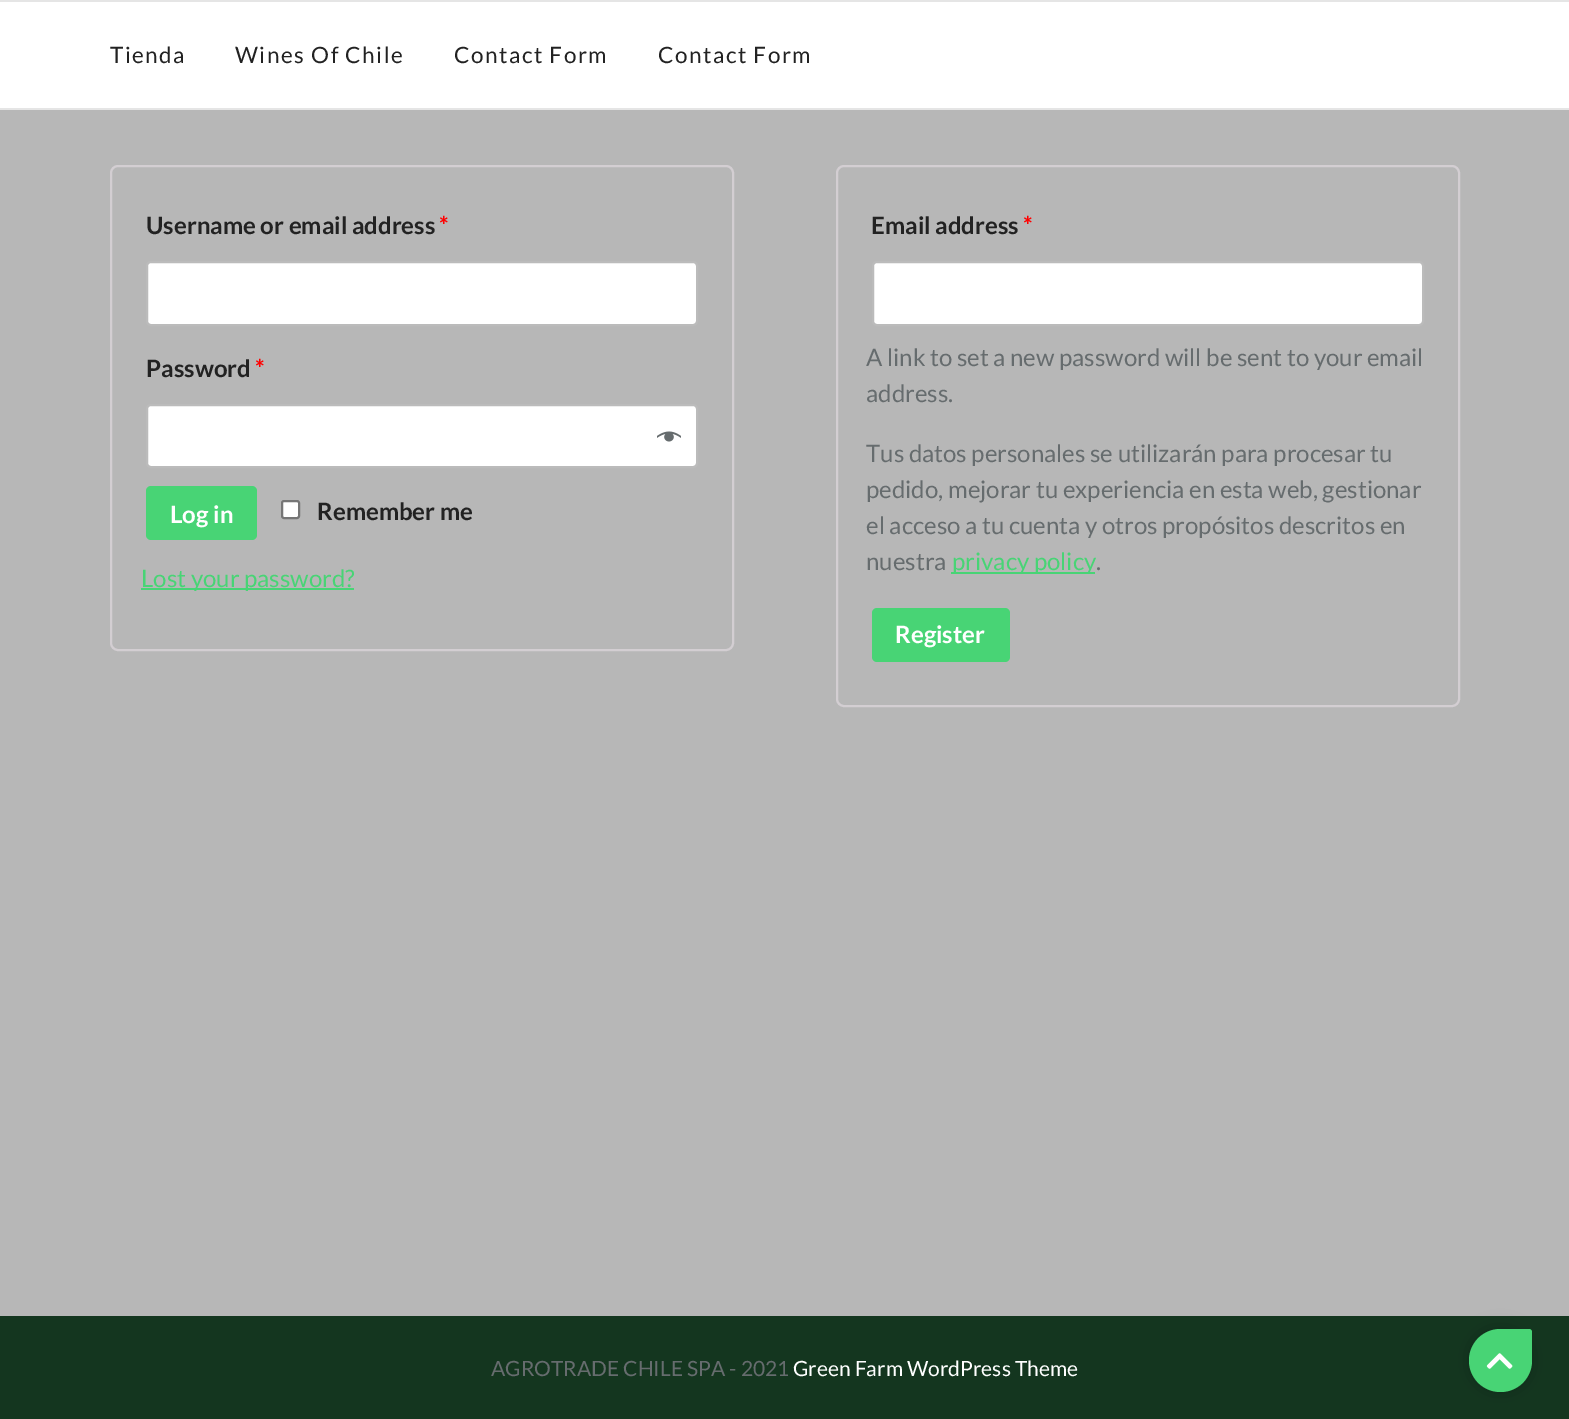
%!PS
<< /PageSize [1569 1419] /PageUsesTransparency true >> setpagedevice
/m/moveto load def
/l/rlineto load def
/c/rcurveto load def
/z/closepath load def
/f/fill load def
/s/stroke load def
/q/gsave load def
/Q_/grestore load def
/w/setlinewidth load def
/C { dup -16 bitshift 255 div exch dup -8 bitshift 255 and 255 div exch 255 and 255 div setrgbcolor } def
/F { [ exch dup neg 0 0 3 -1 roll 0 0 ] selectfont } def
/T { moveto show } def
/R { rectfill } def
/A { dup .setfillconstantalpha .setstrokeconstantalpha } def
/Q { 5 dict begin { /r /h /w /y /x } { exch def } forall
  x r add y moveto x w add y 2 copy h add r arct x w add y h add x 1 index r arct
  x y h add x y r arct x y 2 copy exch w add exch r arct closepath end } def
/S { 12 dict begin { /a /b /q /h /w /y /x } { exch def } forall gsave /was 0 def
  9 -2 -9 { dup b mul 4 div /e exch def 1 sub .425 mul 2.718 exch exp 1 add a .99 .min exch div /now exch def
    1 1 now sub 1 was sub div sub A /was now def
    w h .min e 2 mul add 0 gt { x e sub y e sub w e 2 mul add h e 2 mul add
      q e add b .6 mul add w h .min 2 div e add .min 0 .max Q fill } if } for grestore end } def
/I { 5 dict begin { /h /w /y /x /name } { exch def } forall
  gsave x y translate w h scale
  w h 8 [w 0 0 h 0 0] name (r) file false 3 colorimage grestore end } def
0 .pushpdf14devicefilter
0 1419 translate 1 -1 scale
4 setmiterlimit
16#B7B7B7 C
0 0 1569 1419 R
16#FFFFFF C
0 2 1569 106 R
16#E5E5E5 C
0 0 1569 2 R
0 108 1569 2 R
/Lato-Regular 22.5 F
16#222222 C
110 63 m 1.5 0 (Tienda) ashow
235 63 m 1.5 0 (Wines Of Chile) ashow
454 63 m 1.5 0 (Contact Form) ashow
658 63 m 1.5 0 (Contact Form) ashow
16#D3CED2 C
2 w
111 166 622 484 7 Q s
/Lato-Bold 24 F
16#222222 C
(Username or email address) 146 234 T
16#FF0000 C
(*) 439 234 T
16#FFFFFF C
147 262 550 63 4 Q q f Q_
16#BBBBBB C
s
16#222222 C
(Password) 146 377 T
16#FF0000 C
(*) 255 377 T
16#FFFFFF C
147 405 550 62 4 Q q f Q_
16#BBBBBB C
s
(1.rgb) 657 431 24 11 I
16#48D475 C
146 486 111 54 5 Q f
16#FFFFFF C
(Log in) 170 523 T
282 501 17 17 2 Q q f Q_
16#767676 C
s
16#222222 C
(Remember me) 317 520 T
16#48D475 C
141 588 213 2 R
/Lato-Regular 24 F
(Lost your password?) 141 587 T
16#D3CED2 C
837 166 622 540 7 Q s
/Lato-Bold 24 F
16#222222 C
(Email address) 871 234 T
16#FF0000 C
(*) 1023 234 T
16#FFFFFF C
873 262 550 63 4 Q q f Q_
16#BBBBBB C
s
/Lato-Regular 24 F
16#666C6E C
(A link to set a new password will be sent to your email) 866 366 T
(address.) 866 402 T
(Tus datos personales se utilizarán para procesar tu) 866 462 T
(pedido, mejorar tu experiencia en esta web, gestionar) 866 498 T
(el acceso a tu cuenta y otros propósitos descritos en) 866 534 T
(nuestra) 866 570 T
16#48D475 C
951 572 144 2 R
(privacy policy) 952 570 T
16#666C6E C
(.) 1096 570 T
16#48D475 C
872 608 138 54 5 Q f
/Lato-Bold 24 F
16#FFFFFF C
(Register) 895 643 T
16#14361F C
0 1316 1569 103 R
/Lato-Regular 21 F
16#666C6E C
(AGROTRADE CHILE SPA - 2021) 491 1376 T
16#FFFFFF C
(Green Farm WordPress Theme) 793 1376 T
16#000000 C
1469 1329 63 63 31.5 9 .2 S
16#48D475 C
1500.5 1329 m 28.5 0 l 1.5 0 3 1.5 3 3 c 0 28.5 l 0 17.5 -14 31.5 -31.5 31.5 c -17.5 0 -31.5 -14 -31.5 -31.5 c 0 -17.5 14 -31.5 31.5 -31.5 c z f
(2.rgb) 1486 1353 27 16 I
.poppdf14devicefilter showpage
